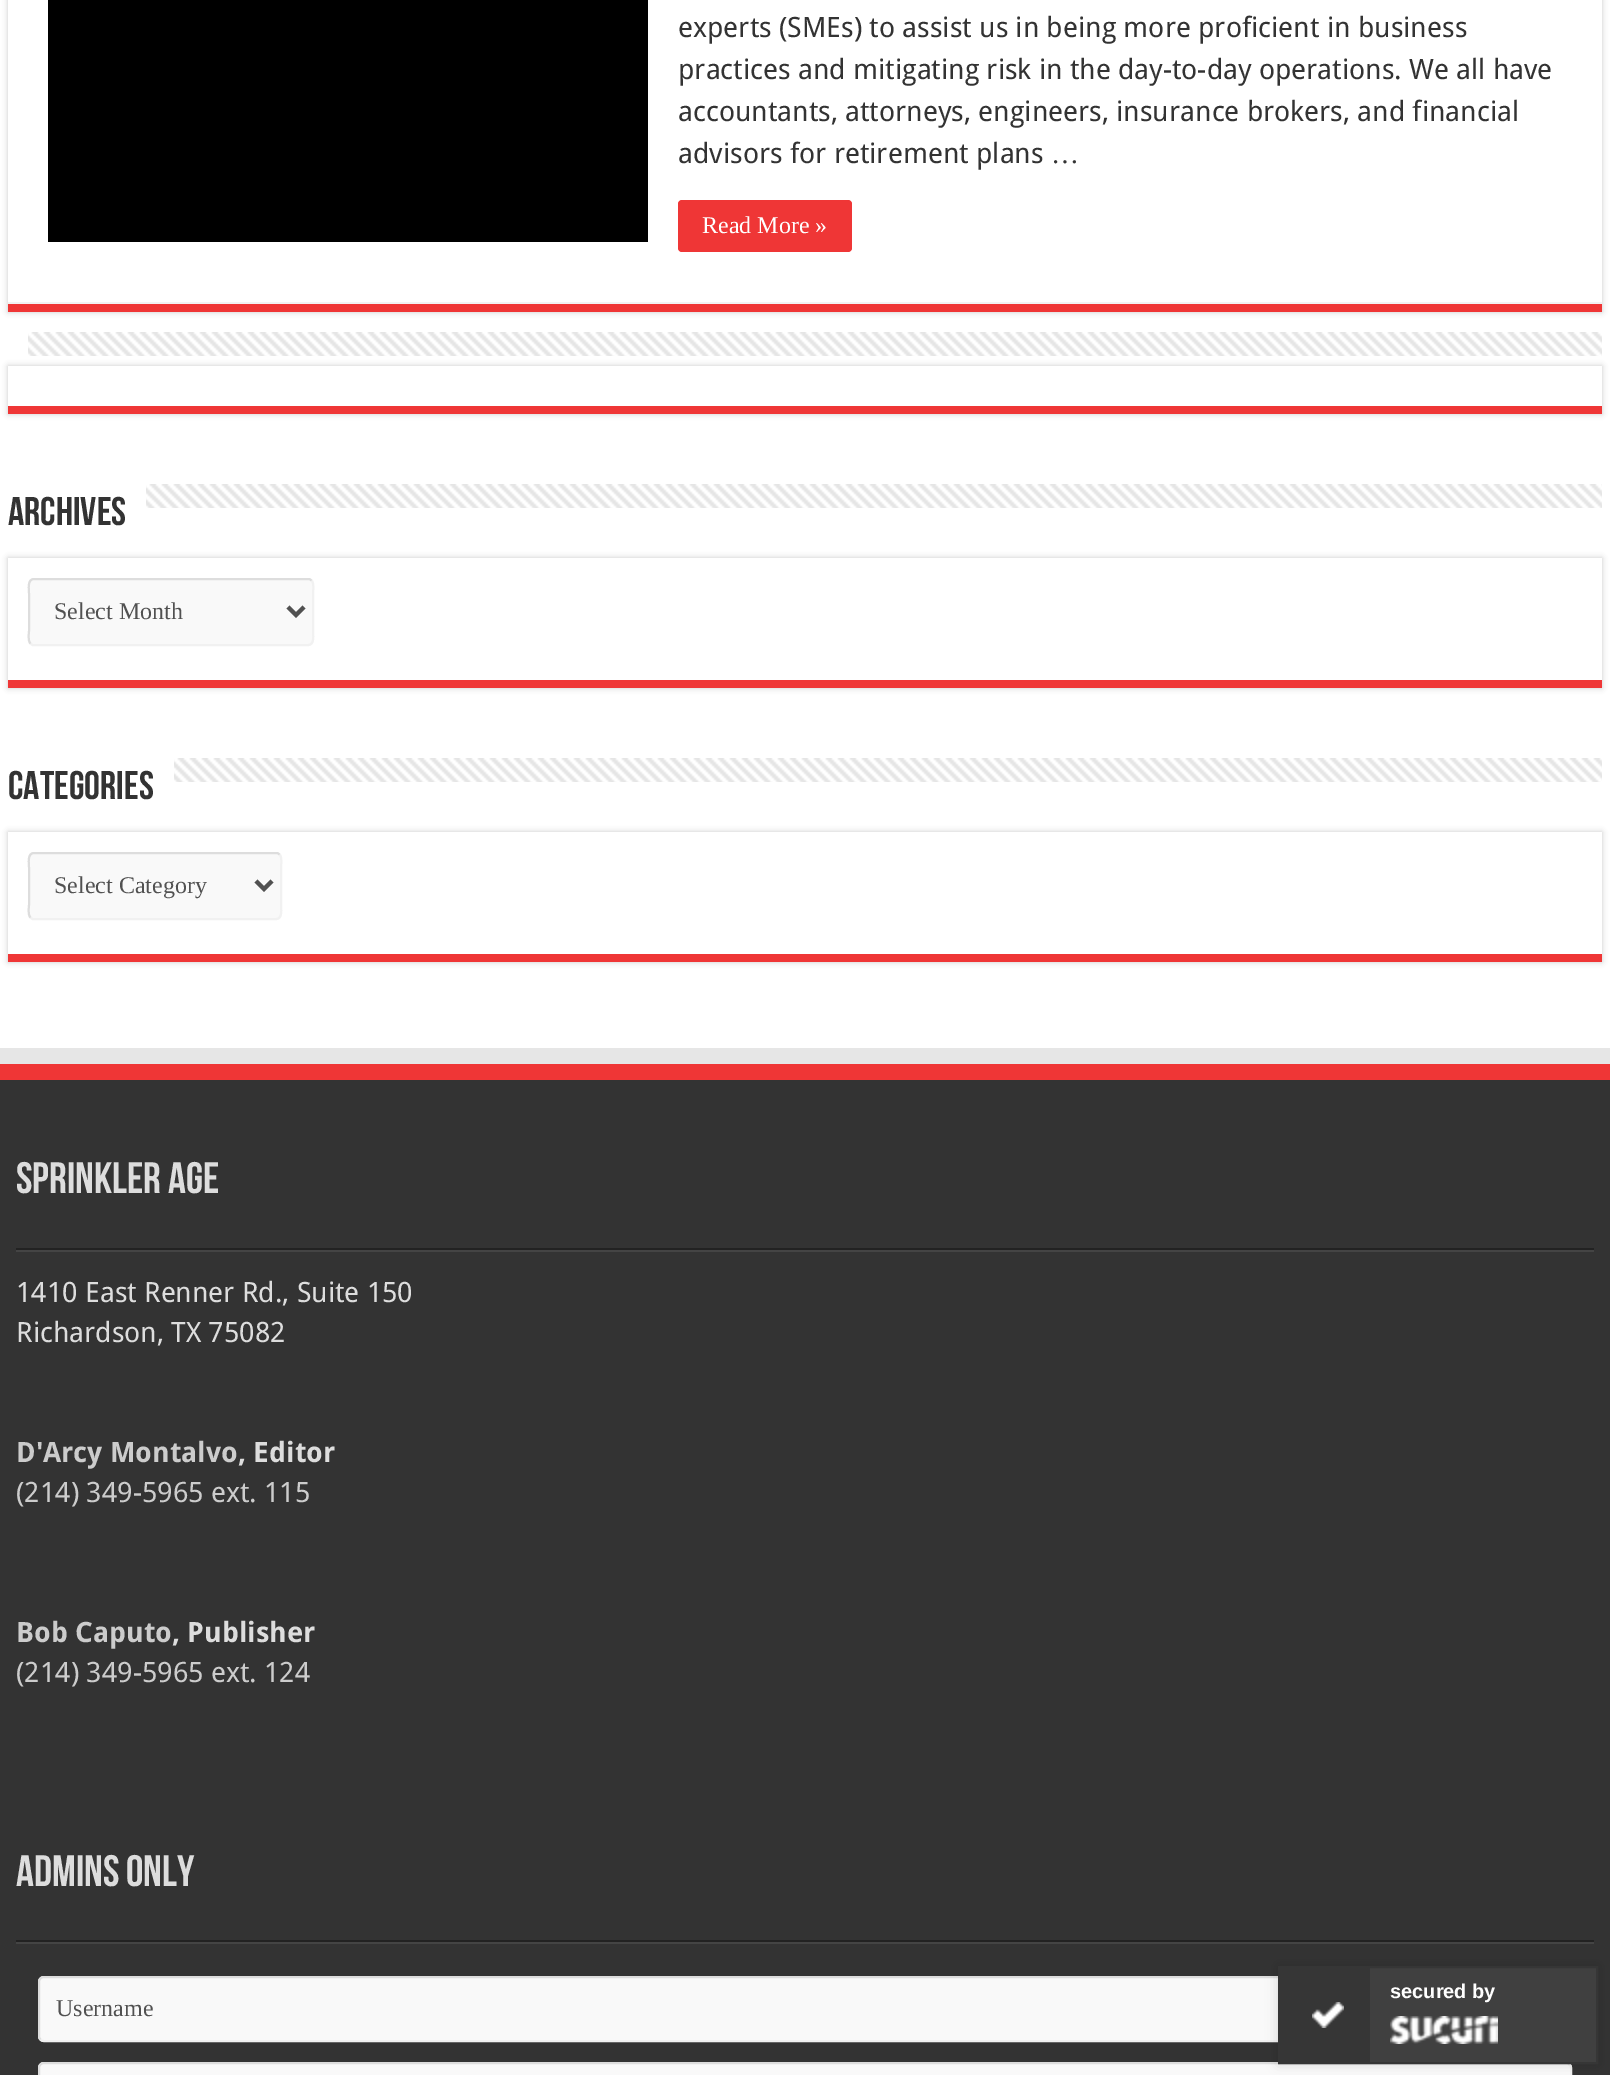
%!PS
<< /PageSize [1610 2075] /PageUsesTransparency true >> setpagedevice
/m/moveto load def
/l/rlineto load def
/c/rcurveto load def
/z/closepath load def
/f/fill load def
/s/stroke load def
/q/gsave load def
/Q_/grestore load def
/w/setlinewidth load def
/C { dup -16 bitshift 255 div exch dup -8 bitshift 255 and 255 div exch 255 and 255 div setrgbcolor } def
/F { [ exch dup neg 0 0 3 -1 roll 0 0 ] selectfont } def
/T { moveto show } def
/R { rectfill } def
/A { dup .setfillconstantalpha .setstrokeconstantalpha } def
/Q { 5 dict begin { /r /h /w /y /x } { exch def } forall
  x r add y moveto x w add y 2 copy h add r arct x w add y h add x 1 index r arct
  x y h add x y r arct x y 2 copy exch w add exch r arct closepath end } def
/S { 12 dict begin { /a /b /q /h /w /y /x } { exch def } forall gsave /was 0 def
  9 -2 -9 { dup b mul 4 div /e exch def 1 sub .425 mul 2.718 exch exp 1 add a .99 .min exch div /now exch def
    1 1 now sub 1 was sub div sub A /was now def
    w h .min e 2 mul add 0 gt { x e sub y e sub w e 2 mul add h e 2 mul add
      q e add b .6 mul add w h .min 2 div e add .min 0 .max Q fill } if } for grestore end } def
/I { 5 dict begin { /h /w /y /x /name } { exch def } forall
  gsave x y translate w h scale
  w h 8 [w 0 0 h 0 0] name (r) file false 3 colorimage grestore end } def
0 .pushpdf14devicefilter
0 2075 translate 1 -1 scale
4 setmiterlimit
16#FFFFFF C
0 0 1610 2075 R
q
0 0 m 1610 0 l 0 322 l -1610 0 l z 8 -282 m 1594 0 l 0 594 l -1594 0 l z eoclip newpath
16#CACACA C
8 -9 1594 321 0 3 1 S
Q_
16#EF3636 C
8 304 1594 8 R
16#F2F2F2 C
8 302 1594 2 R
16#000000 C
48 0 600 242 R
/DroidSans-Regular 28 F
16#333333 C
(experts \(SMEs\) to assist us in being more proficient in business) 678 37 T
(practices and mitigating risk in the day-to-day operations. We all have) 678 79 T
(accountants, attorneys, engineers, insurance brokers, and financial) 678 121 T
(advisors for retirement plans) 678 163 T
/LiberationSerif-Regular 28 F
(…) 1051 163 T
16#EF3636 C
678 200 174 52 4 Q f
/LiberationSerif-Regular 24 F
16#FFFFFF C
(Read More ») 702 233 T
(1.rgb) 28 332 1574 24 I
q
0 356 m 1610 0 l 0 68 l -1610 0 l z 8 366 m 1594 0 l 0 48 l -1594 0 l z eoclip newpath
16#CACACA C
8 366 1594 48 0 3 1 S
Q_
16#EF3636 C
8 406 1594 8 R
/BebasNeue-Bold 40 F
16#333333 C
(Archives) 8 525 T
(2.rgb) 146 484 1456 24 I
q
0 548 m 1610 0 l 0 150 l -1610 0 l z 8 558 m 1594 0 l 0 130 l -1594 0 l z eoclip newpath
16#CACACA C
8 558 1594 130 0 3 1 S
Q_
16#EF3636 C
8 680 1594 8 R
16#F9F9F9 C
28 578 286 68 6 Q f
16#F1F1F1 C
2 w
311.5 580.5 m 3 3 1.5 10.5 1.5 13 c 0 37 l 0 3.5 2 14.5 -5 14.5 c -275.5 0 l -2 -1.5 l s
16#DDDDDD C
30.5 643.5 m -3 -3 -1.5 -10.5 -1.5 -13 c 0 -37 l 0 -3.5 -2 -14.5 5 -14.5 c 275.5 0 l 2 1.5 l s
16#515151 C
4 w
288 607 m 8 8 l 8 -8 l s
/LiberationSerif-Regular 24 F
(Select Month) 54 619 T
/BebasNeue-Bold 40 F
16#333333 C
(Categories) 8 799 T
(3.rgb) 174 758 1428 24 I
q
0 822 m 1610 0 l 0 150 l -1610 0 l z 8 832 m 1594 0 l 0 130 l -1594 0 l z eoclip newpath
16#CACACA C
8 832 1594 130 0 3 1 S
Q_
16#EF3636 C
8 954 1594 8 R
16#F9F9F9 C
28 852 254 68 6 Q f
16#F1F1F1 C
2 w
279.5 854.5 m 3 3 1.5 10.5 1.5 13 c 0 37 l 0 3.5 2 14.5 -5 14.5 c -243.5 0 l -2 -1.5 l s
16#DDDDDD C
30.5 917.5 m -3 -3 -1.5 -10.5 -1.5 -13 c 0 -37 l 0 -3.5 -2 -14.5 5 -14.5 c 243.5 0 l 2 1.5 l s
16#515151 C
4 w
256 881 m 8 8 l 8 -8 l s
/LiberationSerif-Regular 24 F
(Select Category) 54 893 T
16#E6E6E6 C
0 1048 1610 16 R
16#333333 C
0 1080 1610 995 R
16#EF3636 C
0 1064 1610 16 R
16#222222 C
16 1248 1578 2 R
/BebasNeue-Bold 44 F
16#DDDDDD C
(Sprinkler Age) 16 1193 T
16#444444 C
16 1250 1578 2 R
/DroidSans-Regular 28 F
16#DDDDDD C
(1410 East Renner Rd., Suite 150) 16 1302 T
(Richardson, TX 75082) 16 1342 T
/DroidSans-Bold 28 F
16#CCCCCC C
(D'Arcy Montalvo) 16 1462 T
16#DDDDDD C
(, Editor) 238 1462 T
/DroidSans-Regular 28 F
16#CCCCCC C
(\(214\) 349-5965 ext. 115) 16 1502 T
/DroidSans-Bold 28 F
(Bob Caputo) 16 1642 T
16#DDDDDD C
(, Publisher) 172 1642 T
/DroidSans-Regular 28 F
16#CCCCCC C
(\(214\) 349-5965 ext. 124) 16 1682 T
16#222222 C
16 1940 1578 2 R
/BebasNeue-Bold 44 F
16#DDDDDD C
(Admins Only) 16 1886 T
16#444444 C
16 1942 1578 2 R
16#F9F9F9 C
38 1976 1534 66 6 Q f
16#F1F1F1 C
2 w
1569.5 1978.5 m 1 1 1.5 2 1.5 3.5 c 0 54 l 0 1.5 -.5 2.5 -1.5 3.5 c -1 1 -2 1.5 -3.5 1.5 c -1522 0 l -1.5 0 -2.5 -.5 -3.5 -1.5 c s
16#DDDDDD C
40.5 2039.5 m -1 -1 -1.5 -2 -1.5 -3.5 c 0 -54 l 0 -1.5 .5 -2.5 1.5 -3.5 c 1 -1 2 -1.5 3.5 -1.5 c 1522 0 l 1.5 0 2.5 .5 3.5 1.5 c s
/LiberationSerif-Regular 24 F
16#515151 C
(Username) 56 2016 T
16#F9F9F9 C
38 2062 1534 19 6 Q f
16#F1F1F1 C
1569.5 2064.5 m 1 1 1.5 2 1.5 3.5 c 0 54 l 0 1.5 -.5 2.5 -1.5 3.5 c -1 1 -2 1.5 -3.5 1.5 c -1522 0 l -1.5 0 -2.5 -.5 -3.5 -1.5 c s
16#DDDDDD C
40.5 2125.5 m -1 -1 -1.5 -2 -1.5 -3.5 c 0 -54 l 0 -1.5 .5 -2.5 1.5 -3.5 c 1 -1 2 -1.5 3.5 -1.5 c 1522 0 l 1.5 0 2.5 .5 3.5 1.5 c s
16#000000 C
1278 1966 320 98 0 6 .14 S
16#404040 C
1370 1968 226 94 R
16#363636 C
1279 1967 318 96 rectstroke
1280 1968 90 94 R
(4.rgb) 1312 2002 32 26 I
/LiberationSans-Bold 20 F
16#FFFFFF C
(secured by) 1390 1998 T
(5.rgb) 1390 2016 108 28 I
.poppdf14devicefilter showpage
